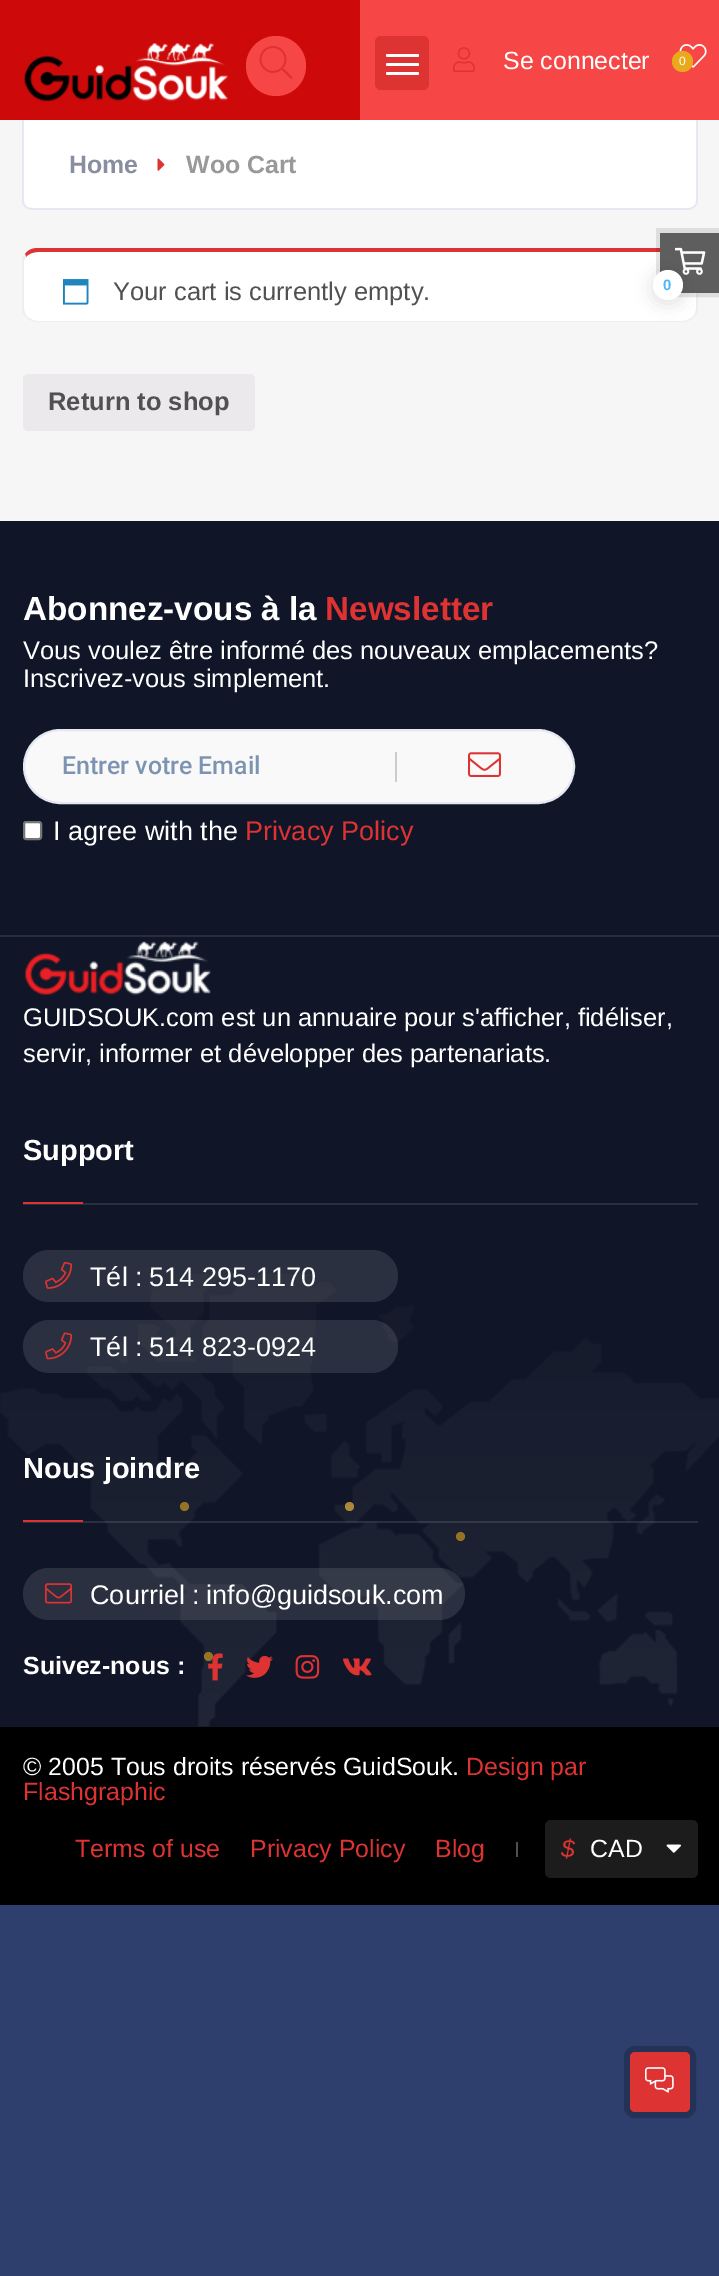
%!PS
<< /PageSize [719 2276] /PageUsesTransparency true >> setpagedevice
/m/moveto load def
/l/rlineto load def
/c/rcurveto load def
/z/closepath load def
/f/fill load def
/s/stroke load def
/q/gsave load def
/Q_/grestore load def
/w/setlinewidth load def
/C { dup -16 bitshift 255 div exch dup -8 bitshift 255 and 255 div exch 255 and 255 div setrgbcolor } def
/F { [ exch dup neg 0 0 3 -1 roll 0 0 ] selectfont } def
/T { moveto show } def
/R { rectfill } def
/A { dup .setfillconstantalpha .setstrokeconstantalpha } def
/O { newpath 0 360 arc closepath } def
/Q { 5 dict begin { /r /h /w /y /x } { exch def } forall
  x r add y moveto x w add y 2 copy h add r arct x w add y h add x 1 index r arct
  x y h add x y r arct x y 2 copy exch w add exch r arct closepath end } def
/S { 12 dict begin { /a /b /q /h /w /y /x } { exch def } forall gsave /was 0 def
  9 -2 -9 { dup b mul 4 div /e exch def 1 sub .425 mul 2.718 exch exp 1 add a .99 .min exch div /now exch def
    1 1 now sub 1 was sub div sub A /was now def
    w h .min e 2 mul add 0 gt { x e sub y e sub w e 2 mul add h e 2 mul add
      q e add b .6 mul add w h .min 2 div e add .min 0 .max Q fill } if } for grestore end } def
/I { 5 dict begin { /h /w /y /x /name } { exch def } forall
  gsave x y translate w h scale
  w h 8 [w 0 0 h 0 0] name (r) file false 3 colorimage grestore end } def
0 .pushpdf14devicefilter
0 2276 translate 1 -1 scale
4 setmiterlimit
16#2E3F6E C
0 0 719 2276 R
16#CE0909 C
0 0 360 120 R
16#F74646 C
276 66 30 O f
(1.rgb) 259 46 34 33 I
360 0 359 120 R
(2.rgb) 24 43 204 59 I
16#DD3333 C
375 36 54 54 6 Q f
16#FFFFFF C
386 54 33 3 1.5 Q f
386 63 33 3 1.5 Q f
386 72 33 3 1.5 Q f
(3.rgb) 453 47 22 25 I
/LiberationSans-Regular 24.9 F
(Se connecter) 503 69 T
(4.rgb) 679 44 28 24 I
16#E8AA1B C
682.5 61.5 10.5 O f
/LiberationSans-Regular 12 F
16#FFFFFF C
(0) 679 65 T
16#F6F6F6 C
0 120 719 401 R
16#FFFFFF C
23 120 m 675 0 l 0 81 l 0 5 -4 9 -9 9 c -657 0 l -5 0 -9 -4 -9 -9 c z f
16#E5E7F2 C
22 120 m 676 0 l 0 81 l 0 5 -5 9 -10 9 c -656 0 l -5 0 -10 -4 -10 -9 c z 24 120 m 672 0 l 0 81 l 0 4 -3 7 -8 7 c -656 0 l -5 0 -8 -3 -8 -7 c z eofill
/LiberationSans-Bold 24.9 F
16#888DA0 C
(Home) 69 173 T
(5.rgb) 157 158 8 13 I
16#999999 C
(Woo Cart) 186 173 T
16#FFFFFF C
38 252 m 644 0 l 8 0 14 5 14 10 c 0 46 l 0 7 -6 13 -14 13 c -644 0 l -8 0 -14 -6 -14 -13 c 0 -46 l 0 -5 6 -10 14 -10 c z f
16#DD3333 C
38 248 m -6 0 -10 2 -13 6 c 1 3 l 2 -3 7 -5 12 -5 c 644 0 l 5 0 10 2 12 5 c 1 -3 l -3 -4 -7 -6 -13 -6 c z f
16#EEEEEE C
698 312 m -1 2 -3 4 -5 6 c -1 -1 l 3 -2 4 -6 4 -9 c 0 -46 l 0 -2 -1 -3 -2 -5 c 1 -3 l 3 4 l z f
693 318 m -3 3 -7 4 -11 4 c -644 0 l -4 0 -8 -1 -11 -4 c 1 -1 l 2 2 6 4 10 4 c 644 0 l 4 0 8 -2 10 -4 c z f
22 258 m 3 -4 l 1 3 l -1 2 -2 3 -2 5 c 0 46 l 0 3 1 7 4 9 c -1 1 l -2 -2 -4 -4 -5 -6 c z f
(6.rgb) 63 279 26 26 I
/LiberationSans-Regular 25.5 F
16#515151 C
(Your cart is currently empty.) 113 300 T
16#EBE9EB C
23 374 232 57 5 Q f
/LiberationSans-Bold 25.5 F
16#515151 C
(Return to shop) 48 410 T
0.1 A
16#000000 C
5 w
658.5 230.5 m 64 0 l 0 64 l -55.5 0 l -4.5 0 -8.5 -4 -8.5 -8.5 c z s
1 A
16#5E5E5E C
660 233 59 60 R
(7.rgb) 675 247 31 28 I
16#000000 C
653 273 30 30 15 9 .12 S
16#FFFFFF C
668 285 15 O f
/LiberationSans-Bold 15 F
16#4DB7FE C
(0) 663 290 T
16#101627 C
0 521 719 1206 R
16#282D3D C
0 935 719 2 R
/LiberationSans-Bold 33.25 F
16#FFFFFF C
(Abonnez-vous à la) 23 620 T
16#DD3333 C
(Newsletter) 325 620 T
/LiberationSans-Regular 25.5 F
16#FFFFFF C
(Vous voulez être informé des nouveaux emplacements?) 23 659 T
(Inscrivez-vous simplement.) 23 687 T
16#F9F9F9 C
24 730 550 73 36.5 Q q f Q_
16#E5E7F2 C
2 w
s
/Roboto-Medium 24.9 F
16#7D93B2 C
(Entrer votre Email) 62 774 T
16#CCCCCC C
395 752 2 30 R
(8.rgb) 468 752 33 25 I
16#FFFFFF C
24 822 17 17 2 Q q f Q_
16#767676 C
s
/LiberationSans-Regular 27 F
16#FFFFFF C
(I agree with the) 53 840 T
16#DD3333 C
(Privacy Policy) 245 840 T
(9.rgb) 25 941 186 54 I
/LiberationSans-Regular 25.5 F
16#FFFFFF C
(GUIDSOUK.com est un annuaire pour s'afficher, fidéliser,) 23 1026 T
(servir, informer et développer des partenariats.) 23 1062 T
16#2A303F C
23 1203 675 2 R
/LiberationSans-Bold 29 F
16#FFFFFF C
(Support) 23 1160 T
16#DD3333 C
23 1202 60 2 R
(17.rgb) 0 1274 719 453 I
0.11 A
16#FFFFFF C
23 1250 375 52 26 Q f
1 A
(10.rgb) 45 1261 27 28 I
/LiberationSans-Regular 27 F
(Tél :) 90 1286 T
(514 295-1170) 149 1286 T
0.11 A
23 1320 375 53 26.5 Q f
1 A
(11.rgb) 45 1332 28 28 I
(Tél :) 90 1356 T
(514 823-0924) 149 1356 T
0.11 A
23 1521 675 2 R
/LiberationSans-Bold 29 F
1 A
(Nous joindre) 23 1478 T
16#DD3333 C
23 1520 60 2 R
0.11 A
16#FFFFFF C
23 1568 442 52 26 Q f
1 A
(12.rgb) 45 1583 27 21 I
/LiberationSans-Regular 27 F
(Courriel :) 90 1604 T
(info@guidsouk.com) 206 1604 T
/LiberationSans-Bold 24.9 F
(Suivez-nous :) 23 1674 T
16#977425 C
208.5 1656.5 4.5 O f
(13.rgb) 208 1653 15 28 I
(14.rgb) 246 1655 27 23 I
(15.rgb) 295 1655 25 24 I
(16.rgb) 343 1658 29 18 I
16#967324 C
184.5 1506.5 4.5 O f
0.24 A
16#FFFFFF C
349.5 1506.5 4.5 O f
0.6 A
16#E8AA1B C
349.5 1506.5 4.5 O f
1 A
16#967324 C
460.5 1536.5 4.5 O f
16#000000 C
0 1727 719 178 R
/LiberationSans-Regular 24.9 F
16#FFFFFF C
(© 2005 Tous droits réservés GuidSouk.) 23 1775 T
16#DD3333 C
(Design par) 466 1775 T
(Flashgraphic) 23 1800 T
(Terms of use) 75 1857 T
(Privacy Policy) 250 1857 T
(Blog) 435 1857 T
16#4F4F4F C
516 1842 2 15 R
16#1C1C1C C
545 1820 153 58 6 Q f
/LiberationSans-Italic 24.9 F
16#DD3333 C
($) 561 1857 T
/LiberationSans-Regular 24.9 F
16#FFFFFF C
(CAD) 590 1857 T
(18.rgb) 666 1844 15 9 I
16#253258 C
6 w
627 2049 66 66 8 Q s
16#DD3333 C
630 2052 60 60 5 Q f
(19.rgb) 645 2067 29 26 I
.poppdf14devicefilter showpage
